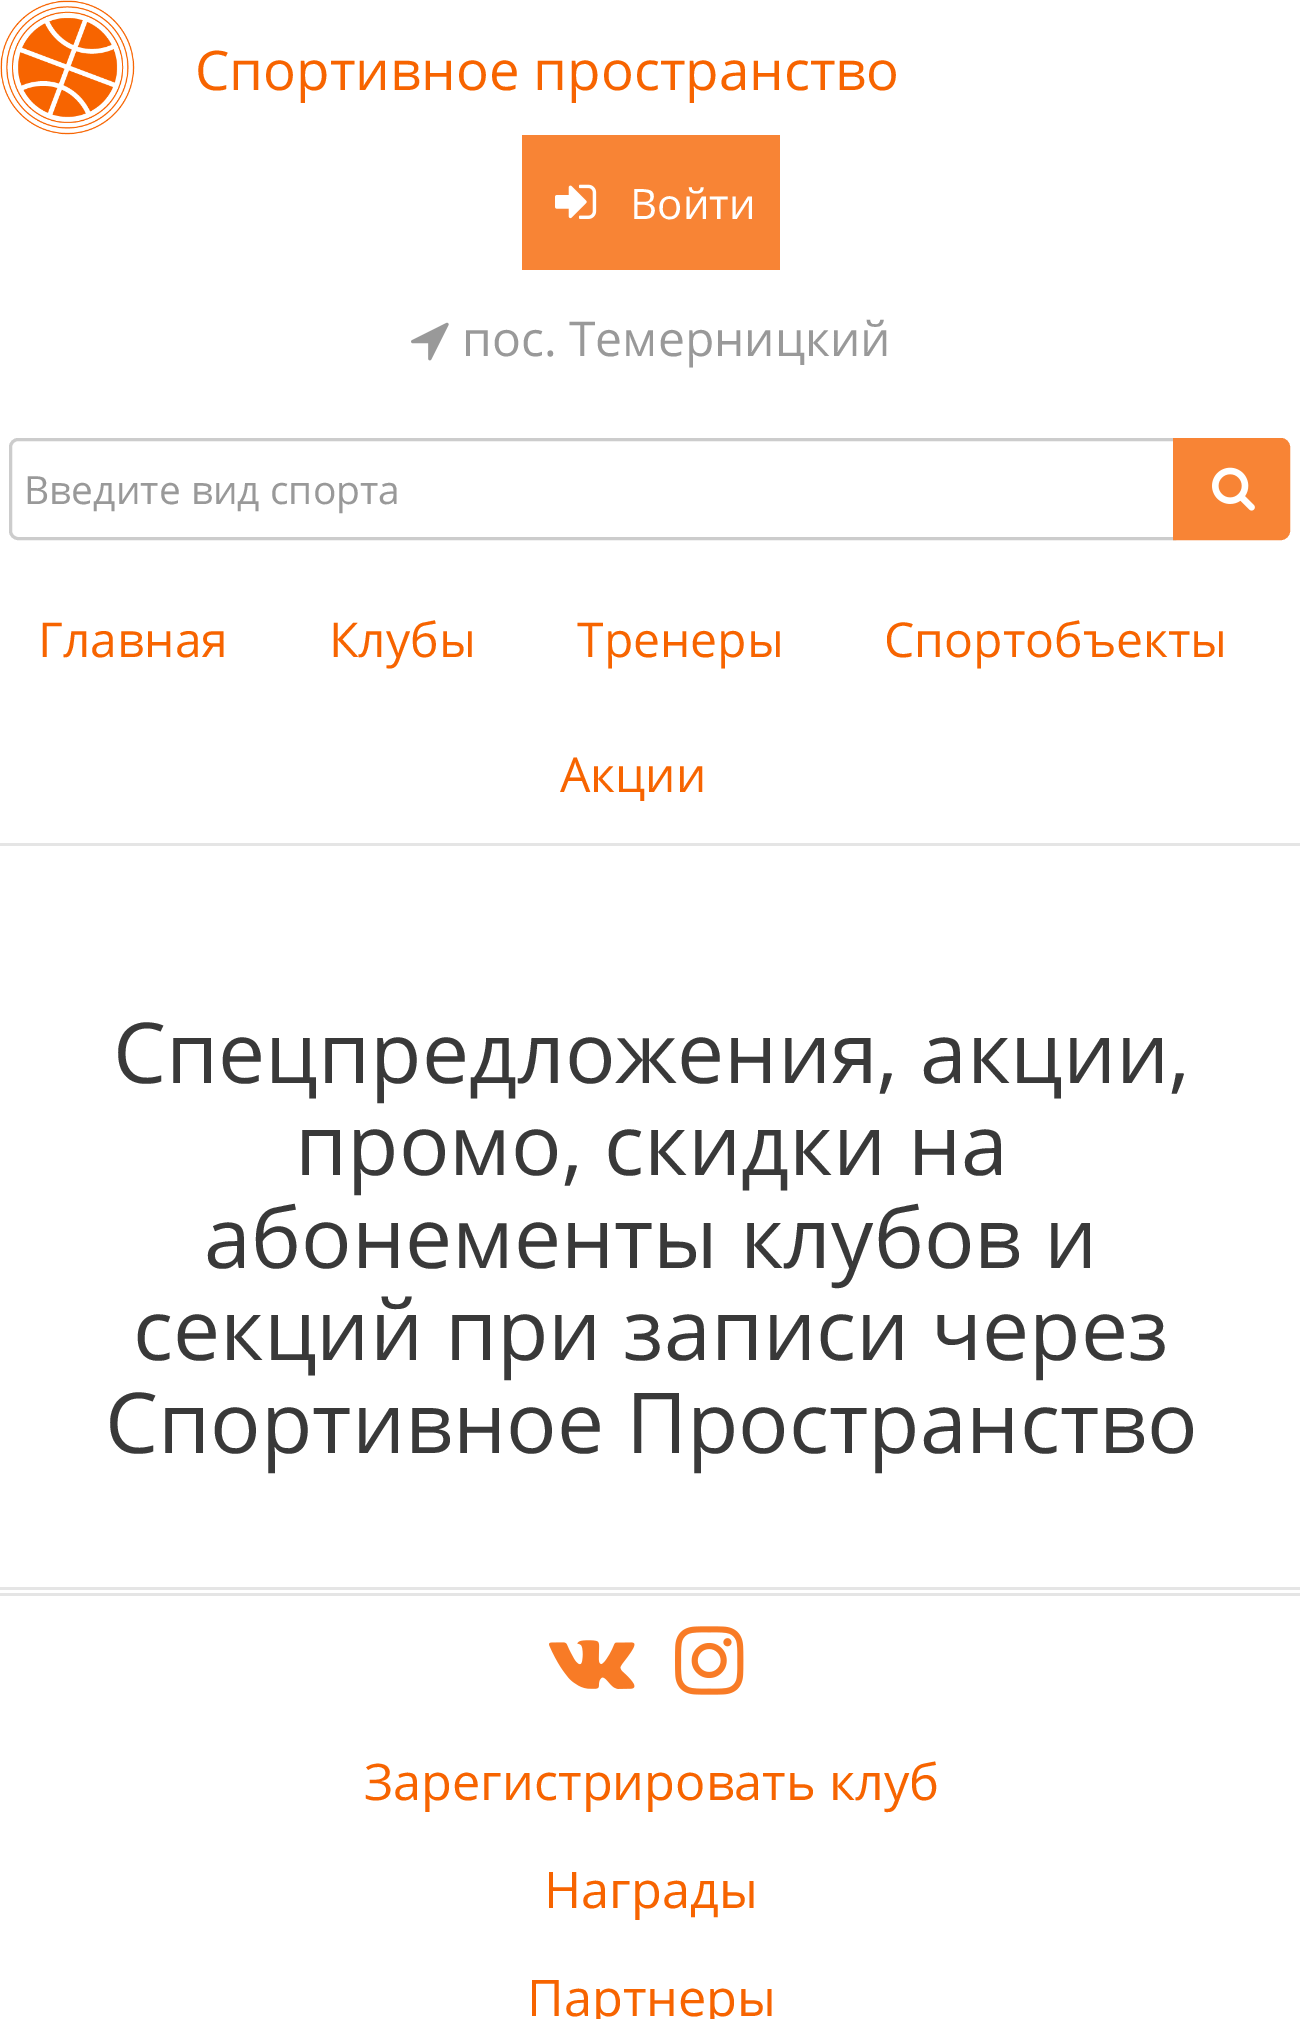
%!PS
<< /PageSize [1300 2019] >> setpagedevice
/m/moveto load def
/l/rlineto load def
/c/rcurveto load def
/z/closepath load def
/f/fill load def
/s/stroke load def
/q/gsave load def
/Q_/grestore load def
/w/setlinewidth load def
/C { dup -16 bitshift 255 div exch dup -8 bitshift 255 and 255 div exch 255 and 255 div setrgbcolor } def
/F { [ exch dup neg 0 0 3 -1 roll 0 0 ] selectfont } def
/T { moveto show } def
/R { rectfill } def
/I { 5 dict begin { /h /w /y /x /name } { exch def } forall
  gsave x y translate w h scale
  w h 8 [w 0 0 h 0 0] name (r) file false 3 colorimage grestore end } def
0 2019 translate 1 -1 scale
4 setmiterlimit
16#FFFFFF C
0 0 1300 2019 R
16#E5E5E5 C
0 843 1300 3 R
(1.rgb) 0 0 135 135 I
/OpenSans-Regular 54.6 F
16#F76400 C
(Спортивное пространство) 195 90 T
16#F88435 C
522 135 258 135 R
(2.rgb) 555 184 42 35 I
/OpenSans-Regular 42 F
16#FFFFFF C
(Войти) 630 219 T
(3.rgb) 411 322 38 39 I
/OpenSans-Regular 48 F
16#999999 C
(пос. Темерницкий) 462 356 T
16#CCCCCC C
3 w
18 439.5 m 1156.5 0 l 0 99 l -1156.5 0 l -4 0 -7.5 -3.5 -7.5 -7.5 c 0 -84 l 0 -4 3.5 -7.5 7.5 -7.5 c z s
/OpenSans-Regular 39 F
16#999999 C
(Введите вид спорта) 24 504 T
16#F88435 C
1174.5 439.5 m 106.5 0 l 4 0 7.5 3.5 7.5 7.5 c 0 84 l 0 4 -3.5 7.5 -7.5 7.5 c -106.5 0 l z q f Q_
s
(4.rgb) 1212 467 43 44 I
/OpenSans-Regular 48 F
16#F76400 C
(Главная) 38 657 T
(Клубы) 329 657 T
(Тренеры) 577 657 T
(Спортобъекты) 884 657 T
(Акции) 560 792 T
/OpenSans-Regular 84 F
16#393939 C
(Спецпредложения, акции,) 113 1083 T
(промо, скидки на) 295 1175 T
(абонементы клубов и) 204 1268 T
(секций при записи через) 133 1360 T
(Спортивное Пространство) 105 1453 T
16#E5E5E5 C
0 1587 1300 3 R
0 1593 1300 3 R
(5.rgb) 549 1640 86 49 I
(6.rgb) 675 1626 69 69 I
/OpenSans-Regular 50.4 F
16#F76400 C
(Зарегистрировать клуб) 364 1800 T
(Награды) 544 1908 T
(Партнеры) 527 2016 T
showpage
